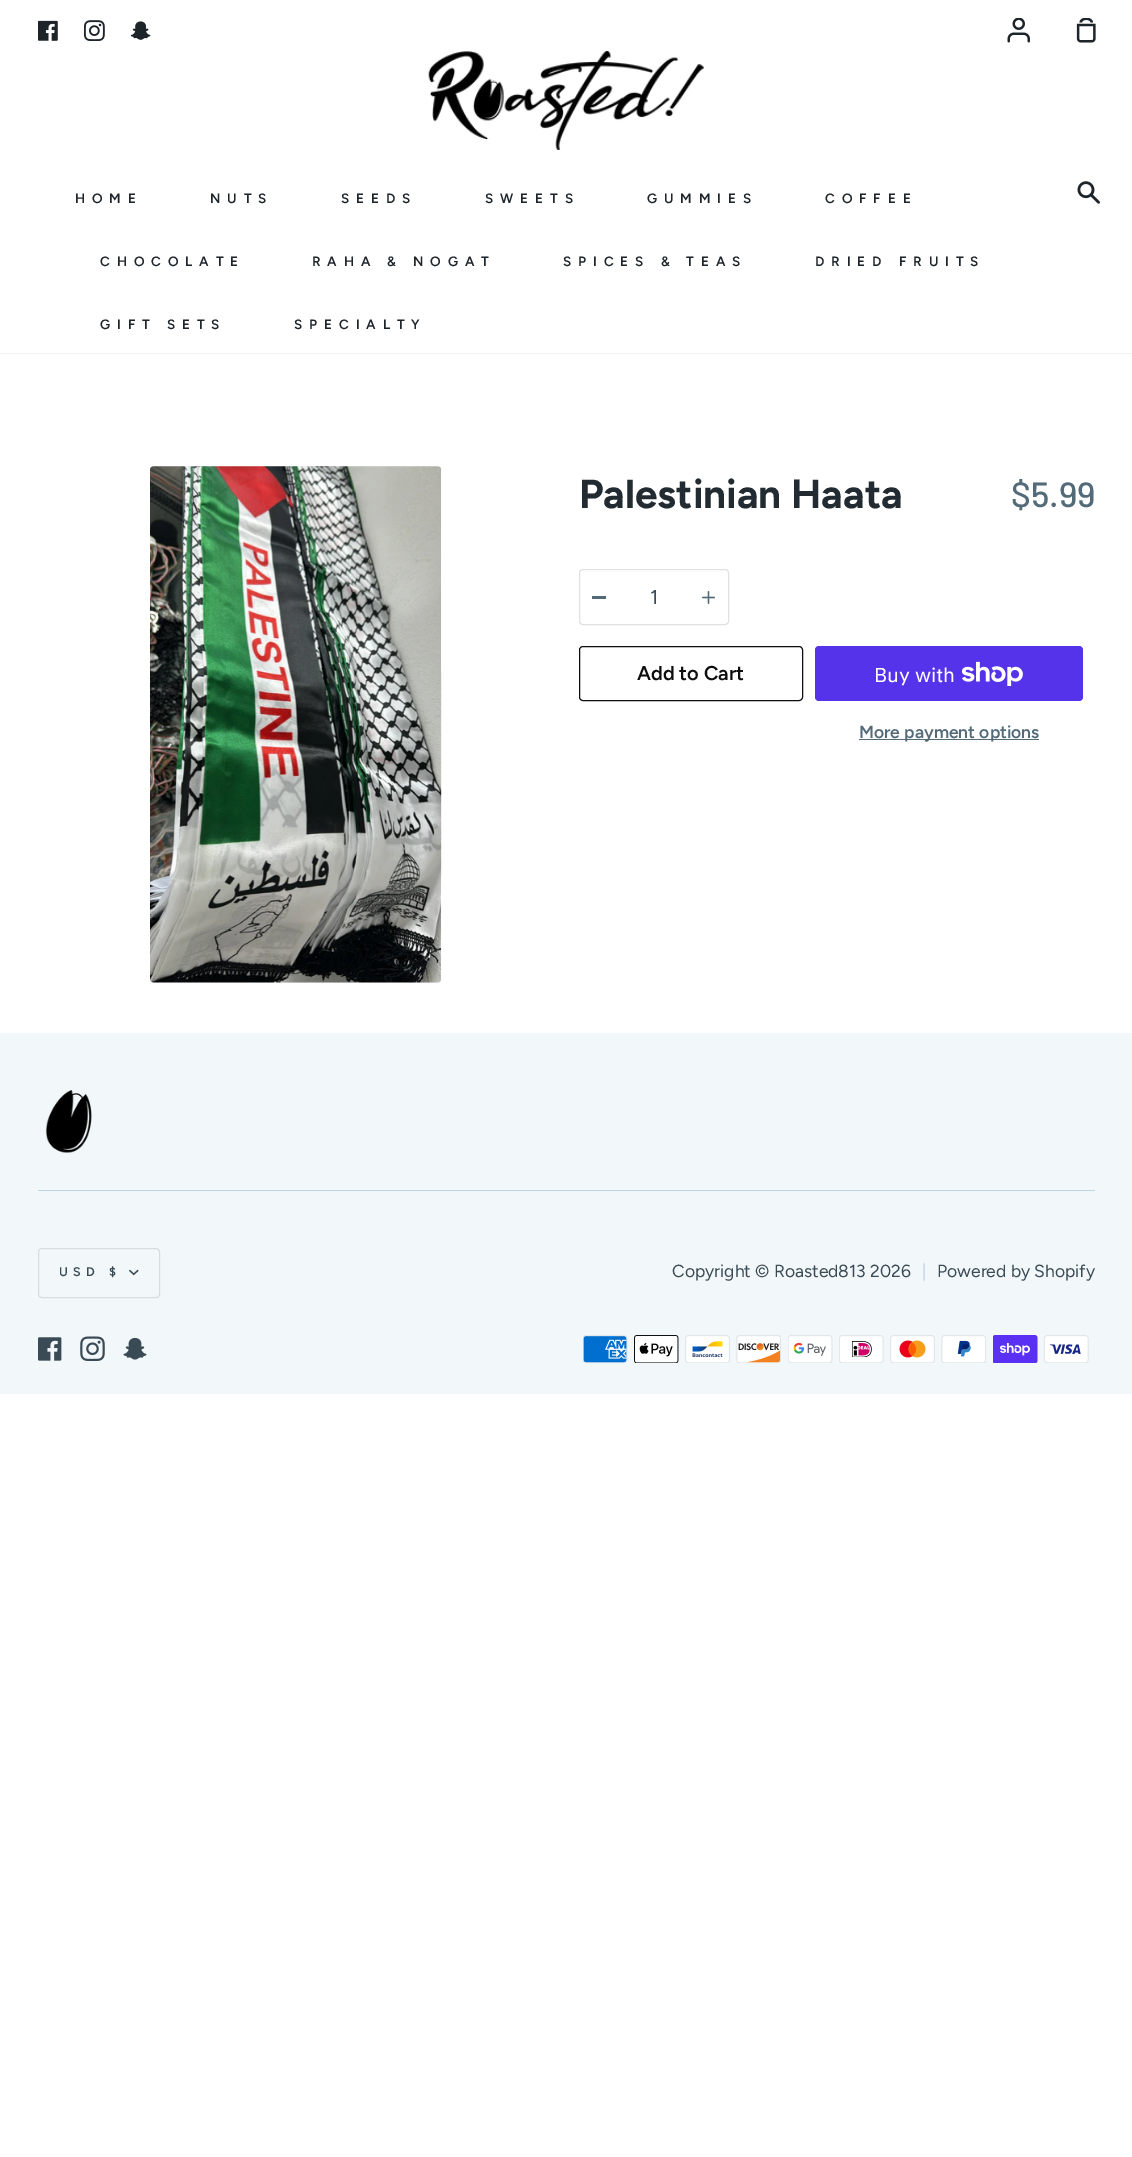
%!PS
<< /PageSize [1132 2157] >> setpagedevice
/m/moveto load def
/f/fill load def
/s/stroke load def
/C { dup -16 bitshift 255 div exch dup -8 bitshift 255 and 255 div exch 255 and 255 div setrgbcolor } def
/F { [ exch dup neg 0 0 3 -1 roll 0 0 ] selectfont } def
/T { moveto show } def
/R { rectfill } def
/Q { 5 dict begin { /r /h /w /y /x } { exch def } forall
  x r add y moveto x w add y 2 copy h add r arct x w add y h add x 1 index r arct
  x y h add x y r arct x y 2 copy exch w add exch r arct closepath end } def
/I { 5 dict begin { /h /w /y /x /name } { exch def } forall
  gsave x y translate w h scale
  w h 8 [w 0 0 h 0 0] name (r) file false 3 colorimage grestore end } def
0 2157 translate 1 -1 scale
4 setmiterlimit
16#FFFFFF C
0 0 1132 2157 R
16#F2F2F2 C
0 353 1132 1 R
(1.rgb) 38 20 20 21 I
(2.rgb) 84 20 21 21 I
(3.rgb) 130 21 21 19 I
(4.rgb) 1007 18 23 25 I
(5.rgb) 1076 18 20 25 I
(6.rgb) 428 50 276 100 I
/Figtree-SemiBold 13.5 F
16#1D242A C
75 203 m 6.9 0 (HOME) ashow
210 203 m 6.9 0 (NUTS) ashow
341 203 m 6.9 0 (SEEDS) ashow
485 203 m 6.9 0 (SWEETS) ashow
647 203 m 6.9 0 (GUMMIES) ashow
825 203 m 6.9 0 (COFFEE) ashow
100 266 m 6.9 0 (CHOCOLATE) ashow
312 266 m 6.9 0 (RAHA & NOGAT) ashow
563 266 m 6.9 0 (SPICES & TEAS) ashow
815 266 m 6.9 0 (DRIED FRUITS) ashow
100 329 m 6.9 0 (GIFT SETS) ashow
294 329 m 6.9 0 (SPECIALTY) ashow
(7.rgb) 1077 181 23 23 I
(8.rgb) 150 466 292 517 I
/Figtree-Bold 40.5 F
16#212B31 C
(Palestinian Haata) 579 508 T
/Barlow-Medium 35 F
16#536B79 C
($5.99) 1011 507 T
16#DFE1E3 C
579.5 569.5 149 55 3.5 Q s
16#536B79 C
592 596 14 3 R
/Figtree-Regular 20 F
16#3A4B55 C
(1) 650 604 T
(9.rgb) 702 591 13 13 I
16#0E0E0E C
579.5 646.5 223 54 3.5 Q s
/Figtree-SemiBold 20 F
(Add to Cart) 637 680 T
16#5433EB C
815 646 268 55 4 Q f
/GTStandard-Regular 20 F
16#FFFFFF C
(Buy with) 874 682 T
(10.rgb) 961 661 62 25 I
16#536B79 C
859 739 180 1 R
/Figtree-SemiBold 17.5 F
(More payment options) 859 738 T
16#F2F7FA C
0 1033 1132 361 R
(11.rgb) 45 1090 47 63 I
16#BBD5E5 C
38 1190 1057 1 R
16#D6DDE1 C
38.5 1248.5 121 49 3.5 Q s
/Figtree-SemiBold 12.5 F
16#3A4B55 C
59 1276 m 5.5 0 (USD $) ashow
(12.rgb) 129 1269 10 7 I
/Figtree-Regular 17.5 F
(Copyright © Roasted813 2026) 672 1277 T
16#BBD5E5 C
(|) 922 1277 T
16#3A4B55 C
(Powered by Shopify) 937 1277 T
(13.rgb) 38 1337 24 24 I
(14.rgb) 80 1336 25 25 I
(15.rgb) 123 1337 24 23 I
(16.rgb) 583 1335 45 28 I
(17.rgb) 634 1335 45 28 I
(18.rgb) 685 1335 45 28 I
(19.rgb) 736 1335 45 28 I
(20.rgb) 788 1335 45 28 I
(21.rgb) 839 1335 45 28 I
(22.rgb) 890 1335 45 28 I
(23.rgb) 941 1335 45 28 I
(24.rgb) 993 1335 45 28 I
(25.rgb) 1044 1335 45 28 I
showpage
